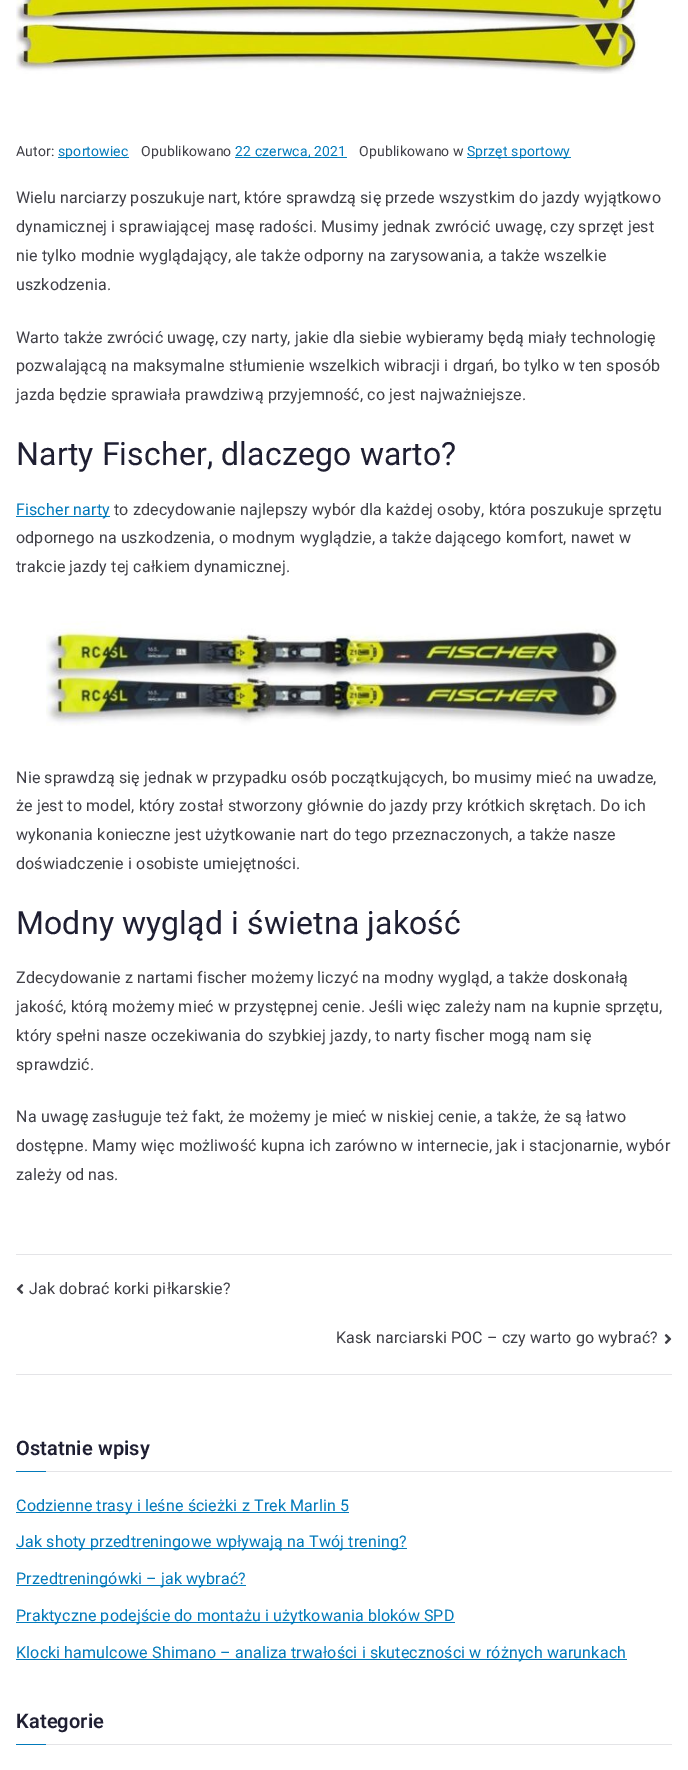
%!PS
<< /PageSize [688 1770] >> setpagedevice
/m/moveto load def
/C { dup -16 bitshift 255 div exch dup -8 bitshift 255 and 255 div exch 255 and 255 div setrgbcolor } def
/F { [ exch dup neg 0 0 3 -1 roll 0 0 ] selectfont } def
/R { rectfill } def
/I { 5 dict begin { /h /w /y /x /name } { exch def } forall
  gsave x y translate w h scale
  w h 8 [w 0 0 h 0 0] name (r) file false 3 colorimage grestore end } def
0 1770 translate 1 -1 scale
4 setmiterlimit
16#FFFFFF C
0 0 688 1770 R
(1.rgb) 16 0 622 74 I
/Roboto-Regular 14 F
16#3F3F46 C
16 156 m .15 0 (Autor:) ashow
16#027ABB C
58 157 71 1 R
58 156 m .15 0 (sportowiec) ashow
16#3F3F46 C
141 156 m .15 0 (Opublikowano) ashow
16#027ABB C
235 157 112 1 R
235 156 m .15 0 (22 czerwca, 2021) ashow
16#3F3F46 C
359 156 m .15 0 (Opublikowano w) ashow
16#027ABB C
467 157 104 1 R
467 156 m .15 0 (Sprzęt sportowy) ashow
/Roboto-Regular 16 F
16#3F3F46 C
16 203 m .15 0 (Wielu narciarzy poszukuje nart, które sprawdzą się przede wszystkim do jazdy wyjątkowo) ashow
16 232 m .15 0 (dynamicznej i sprawiającej masę radości. Musimy jednak zwrócić uwagę, czy sprzęt jest) ashow
16 261 m .15 0 (nie tylko modnie wyglądający, ale także odporny na zarysowania, a także wszelkie) ashow
16 290 m .15 0 (uszkodzenia.) ashow
16 343 m .15 0 (Warto także zwrócić uwagę, czy narty, jakie dla siebie wybieramy będą miały technologię) ashow
16 371 m .15 0 (pozwalającą na maksymalne stłumienie wszelkich wibracji i drgań, bo tylko w ten sposób) ashow
16 400 m .15 0 (jazda będzie sprawiała prawdziwą przyjemność, co jest najważniejsze.) ashow
/Roboto-Regular 32 F
16#1F1F32 C
16 465 m .15 0 (Narty Fischer, dlaczego warto?) ashow
16#027ABB C
16 516 94 1 R
/Roboto-Regular 16 F
16 515 m .15 0 (Fischer narty) ashow
16#3F3F46 C
114 515 m .15 0 (to zdecydowanie najlepszy wybór dla każdej osoby, która poszukuje sprzętu) ashow
16 543 m .15 0 (odpornego na uszkodzenia, o modnym wyglądzie, a także dającego komfort, nawet w) ashow
16 572 m .15 0 (trakcie jazdy tej całkiem dynamicznej.) ashow
(2.rgb) 46 621 574 105 I
16 783 m .15 0 (Nie sprawdzą się jednak w przypadku osób początkujących, bo musimy mieć na uwadze,) ashow
16 811 m .15 0 (że jest to model, który został stworzony głównie do jazdy przy krótkich skrętach. Do ich) ashow
16 840 m .15 0 (wykonania konieczne jest użytkowanie nart do tego przeznaczonych, a także nasze) ashow
16 869 m .15 0 (doświadczenie i osobiste umiejętności.) ashow
/Roboto-Regular 32 F
16#1F1F32 C
16 934 m .15 0 (Modny wygląd i świetna jakość) ashow
/Roboto-Regular 16 F
16#3F3F46 C
16 983 m .15 0 (Zdecydowanie z nartami fischer możemy liczyć na modny wygląd, a także doskonałą) ashow
16 1012 m .15 0 (jakość, którą możemy mieć w przystępnej cenie. Jeśli więc zależy nam na kupnie sprzętu,) ashow
16 1041 m .15 0 (który spełni nasze oczekiwania do szybkiej jazdy, to narty fischer mogą nam się) ashow
16 1070 m .15 0 (sprawdzić.) ashow
16 1122 m .15 0 (Na uwagę zasługuje też fakt, że możemy je mieć w niskiej cenie, a także, że są łatwo) ashow
16 1151 m .15 0 (dostępne. Mamy więc możliwość kupna ich zarówno w internecie, jak i stacjonarnie, wybór) ashow
16 1180 m .15 0 (zależy od nas.) ashow
16#E4E4E7 C
16 1254 656 1 R
16 1374 656 1 R
(3.rgb) 16 1284 8 10 I
16#3F3F46 C
29 1294 m .15 0 (Jak dobrać korki piłkarskie?) ashow
336 1343 m .15 0 (Kask narciarski POC – czy warto go wybrać?) ashow
(4.rgb) 664 1334 8 10 I
16#E4E4E7 C
46 1471 626 1 R
/Roboto-SemiBold 20 F
16#1F1F32 C
16 1455 m .15 0 (Ostatnie wpisy) ashow
16#027ABB C
16 1471 30 1 R
16 1512 333 1 R
/Roboto-Regular 16 F
16 1511 m .15 0 (Codzienne trasy i leśne ścieżki z Trek Marlin 5) ashow
16 1548 391 1 R
16 1547 m .15 0 (Jak shoty przedtreningowe wpływają na Twój trening?) ashow
16 1585 230 1 R
16 1584 m .15 0 (Przedtreningówki – jak wybrać?) ashow
16 1622 439 1 R
16 1621 m .15 0 (Praktyczne podejście do montażu i użytkowania bloków SPD) ashow
16 1659 611 1 R
16 1658 m .15 0 (Klocki hamulcowe Shimano – analiza trwałości i skuteczności w różnych warunkach) ashow
16#E4E4E7 C
46 1744 626 1 R
/Roboto-SemiBold 20 F
16#1F1F32 C
16 1728 m .15 0 (Kategorie) ashow
16#027ABB C
16 1744 30 1 R
showpage
